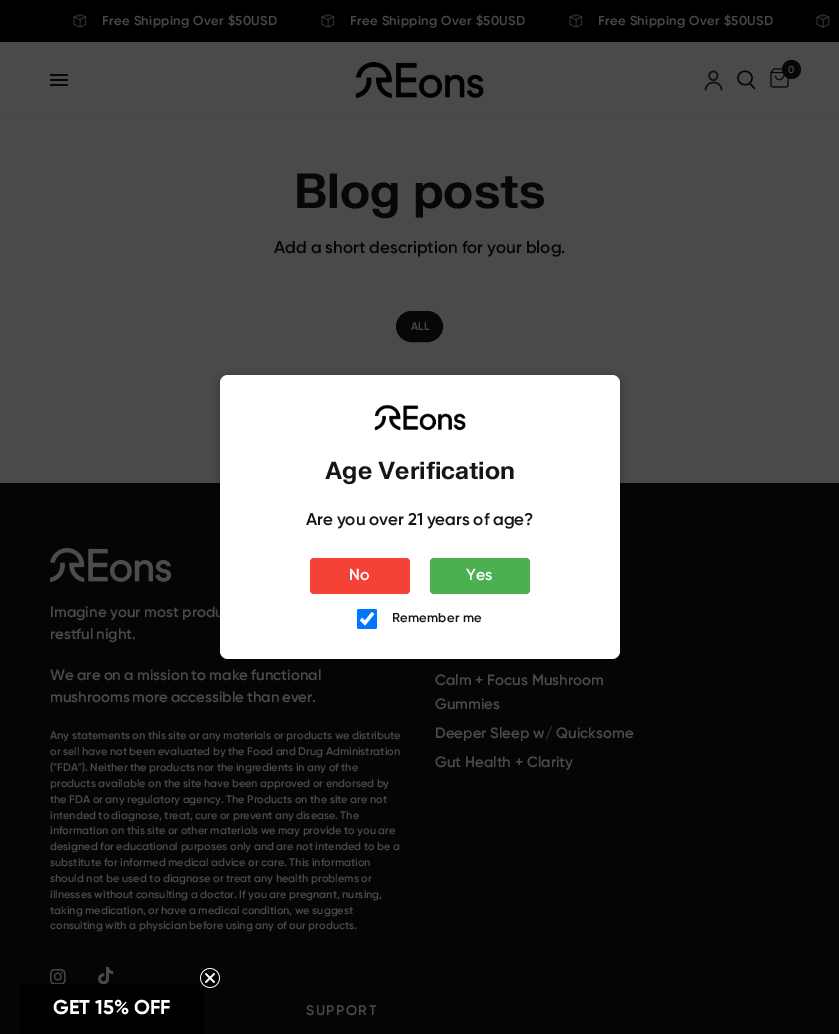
%!PS
<< /PageSize [839 1034] /PageUsesTransparency true >> setpagedevice
/m/moveto load def
/l/rlineto load def
/c/rcurveto load def
/z/closepath load def
/f/fill load def
/s/stroke load def
/q/gsave load def
/Q_/grestore load def
/w/setlinewidth load def
/C { dup -16 bitshift 255 div exch dup -8 bitshift 255 and 255 div exch 255 and 255 div setrgbcolor } def
/F { [ exch dup neg 0 0 3 -1 roll 0 0 ] selectfont } def
/T { moveto show } def
/R { rectfill } def
/A { dup .setfillconstantalpha .setstrokeconstantalpha } def
/O { newpath 0 360 arc closepath } def
/Q { 5 dict begin { /r /h /w /y /x } { exch def } forall
  x r add y moveto x w add y 2 copy h add r arct x w add y h add x 1 index r arct
  x y h add x y r arct x y 2 copy exch w add exch r arct closepath end } def
/S { 12 dict begin { /a /b /q /h /w /y /x } { exch def } forall gsave /was 0 def
  9 -2 -9 { dup b mul 4 div /e exch def 1 sub .425 mul 2.718 exch exp 1 add a .99 .min exch div /now exch def
    1 1 now sub 1 was sub div sub A /was now def
    w h .min e 2 mul add 0 gt { x e sub y e sub w e 2 mul add h e 2 mul add
      q e add b .6 mul add w h .min 2 div e add .min 0 .max Q fill } if } for grestore end } def
/I { 5 dict begin { /h /w /y /x /name } { exch def } forall
  gsave x y translate w h scale
  w h 8 [w 0 0 h 0 0] name (r) file false 3 colorimage grestore end } def
0 .pushpdf14devicefilter
0 1034 translate 1 -1 scale
4 setmiterlimit
16#4B4A49 C
0 0 839 1034 R
16#000000 C
0 0 839 42 R
(1.rgb) 73 14 14 14 I
/Gilroy-SemiBold 13 F
16#4B4A49 C
102 25 m .4 0 (Free Shipping Over $50USD) ashow
(1.rgb) 321 14 14 14 I
350 25 m .4 0 (Free Shipping Over $50USD) ashow
(1.rgb) 569 14 14 14 I
598 25 m .4 0 (Free Shipping Over $50USD) ashow
(1.rgb) 816 14 14 14 I
16#464646 C
0 118 839 1 R
(2.rgb) 355 62 129 36 I
(3.rgb) 704 70 19 21 I
16#070707 C
1.4 w
1 setlinecap
1 setlinejoin
750 83.5 m 4.5 5 l 752 78 m 0 9 -14 9 -14 0 c 0 -9 14 -9 14 0 c z s
(4.rgb) 770 68 19 20 I
791.5 69.5 9.5 O f
/Gilroy-SemiBold 10 F
16#4B4A49 C
(0) 788 73 T
16#070707 C
50 74 18 2 1 Q f
50 79 18 2 1 Q f
50 84 18 2 1 Q f
/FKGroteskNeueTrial-Bold 48 F
(Blog posts) 294 208 T
/Gilroy-SemiBold 17 F
274 253 m -.25 0 32 (Add a short description for your blog.) widthshow
396.5 311.5 46 30 15 Q q f Q_
1 w
0 setlinecap
0 setlinejoin
s
/Gilroy-SemiBold 11 F
16#4B4A49 C
(ALL) 411 330 T
16#050505 C
0 483 839 551 R
(5.rgb) 50 548 121 34 I
/Gilroy-SemiBold 15 F
16#4B4A49 C
(Imagine your most produ) 50 617 T
50 639 m -1 0 32 (restful night.) widthshow
50 680 m -.5 0 32 (We are on a mission to make functional) widthshow
50 702 m -1 0 32 (mushrooms more accessible than ever.) widthshow
/Gilroy-SemiBold 11 F
50 739 m -.25 0 32 (Any statements on this site or any materials or products we distribute) widthshow
50 755 m -.25 0 32 (or sell have not been evaluated by the Food and Drug Administration) widthshow
50 771 m -.25 0 32 (\("FDA"\). Neither the products nor the ingredients in any of the) widthshow
50 787 m -.25 0 32 (products available on the site have been approved or endorsed by) widthshow
50 803 m -.25 0 32 (the FDA or any regulatory agency. The Products on the site are not) widthshow
50 819 m -.4 0 32 (intended to diagnose, treat, cure or prevent any disease. The) widthshow
50 834 m -.25 0 32 (information on this site or other materials we may provide to you are) widthshow
50 850 m -.25 0 32 (designed for educational purposes only and are not intended to be a) widthshow
50 866 m -.25 0 32 (substitute for informed medical advice or care. This information) widthshow
50 882 m -.1 0 32 (should not be used to diagnose or treat any health problems or) widthshow
50 898 m -.25 0 32 (illnesses without consulting a doctor. If you are pregnant, nursing,) widthshow
50 914 m -.25 0 32 (taking medication, or have a medical condition, we suggest) widthshow
50 929 m -.25 0 32 (consulting with a physician before using any of our products.) widthshow
(6.rgb) 50 969 16 15 I
(7.rgb) 98 967 16 17 I
/Gilroy-SemiBold 15 F
(Calm + Focus Mushroom) 435 685 T
(Gummies) 435 709 T
(Deeper Sleep w/ Quicksome) 435 738 T
(Gut Health + Clarity) 435 767 T
/Gilroy-SemiBold 14 F
306 1015 m 1.5 0 (SUPPORT) ashow
16#000000 C
220 379 400 284 8 5 .3 S
16#FFFFFF C
220 375 400 284 8 Q f
(8.rgb) 374 404 92 27 I
/FKGroteskNeueTrial-Bold 24 F
16#161616 C
(Age Verification) 325 479 T
/Gilroy-SemiBold 17 F
306 525 m -.5 0 32 (Are you over 21 years of age?) widthshow
16#F44336 C
310 558 100 36 4 Q f
/Gilroy-SemiBold 16 F
16#FFFFFF C
(No) 349 580 T
16#4CAF50 C
430 558 100 36 4 Q f
16#FFFFFF C
(Yes) 466 580 T
16#0075FF C
357 609 20 20 2 Q f
16#FFFFFF C
3.2 w
361 619 m 4 4 l 8 -10 l s
/Gilroy-SemiBold 13 F
16#161616 C
392 622 m .25 0 (Remember me) ashow
16#000000 C
23 984 m 178 0 l 1.5 0 3 1.5 3 3 c 0 47 l -184 0 l 0 -47 l 0 -1.5 1.5 -3 3 -3 c z f
(9.rgb) 200 968 20 20 I
/Gilroy-Bold 20 F
16#FFFFFF C
(GET 15% OFF) 53 1014 T
.poppdf14devicefilter showpage
